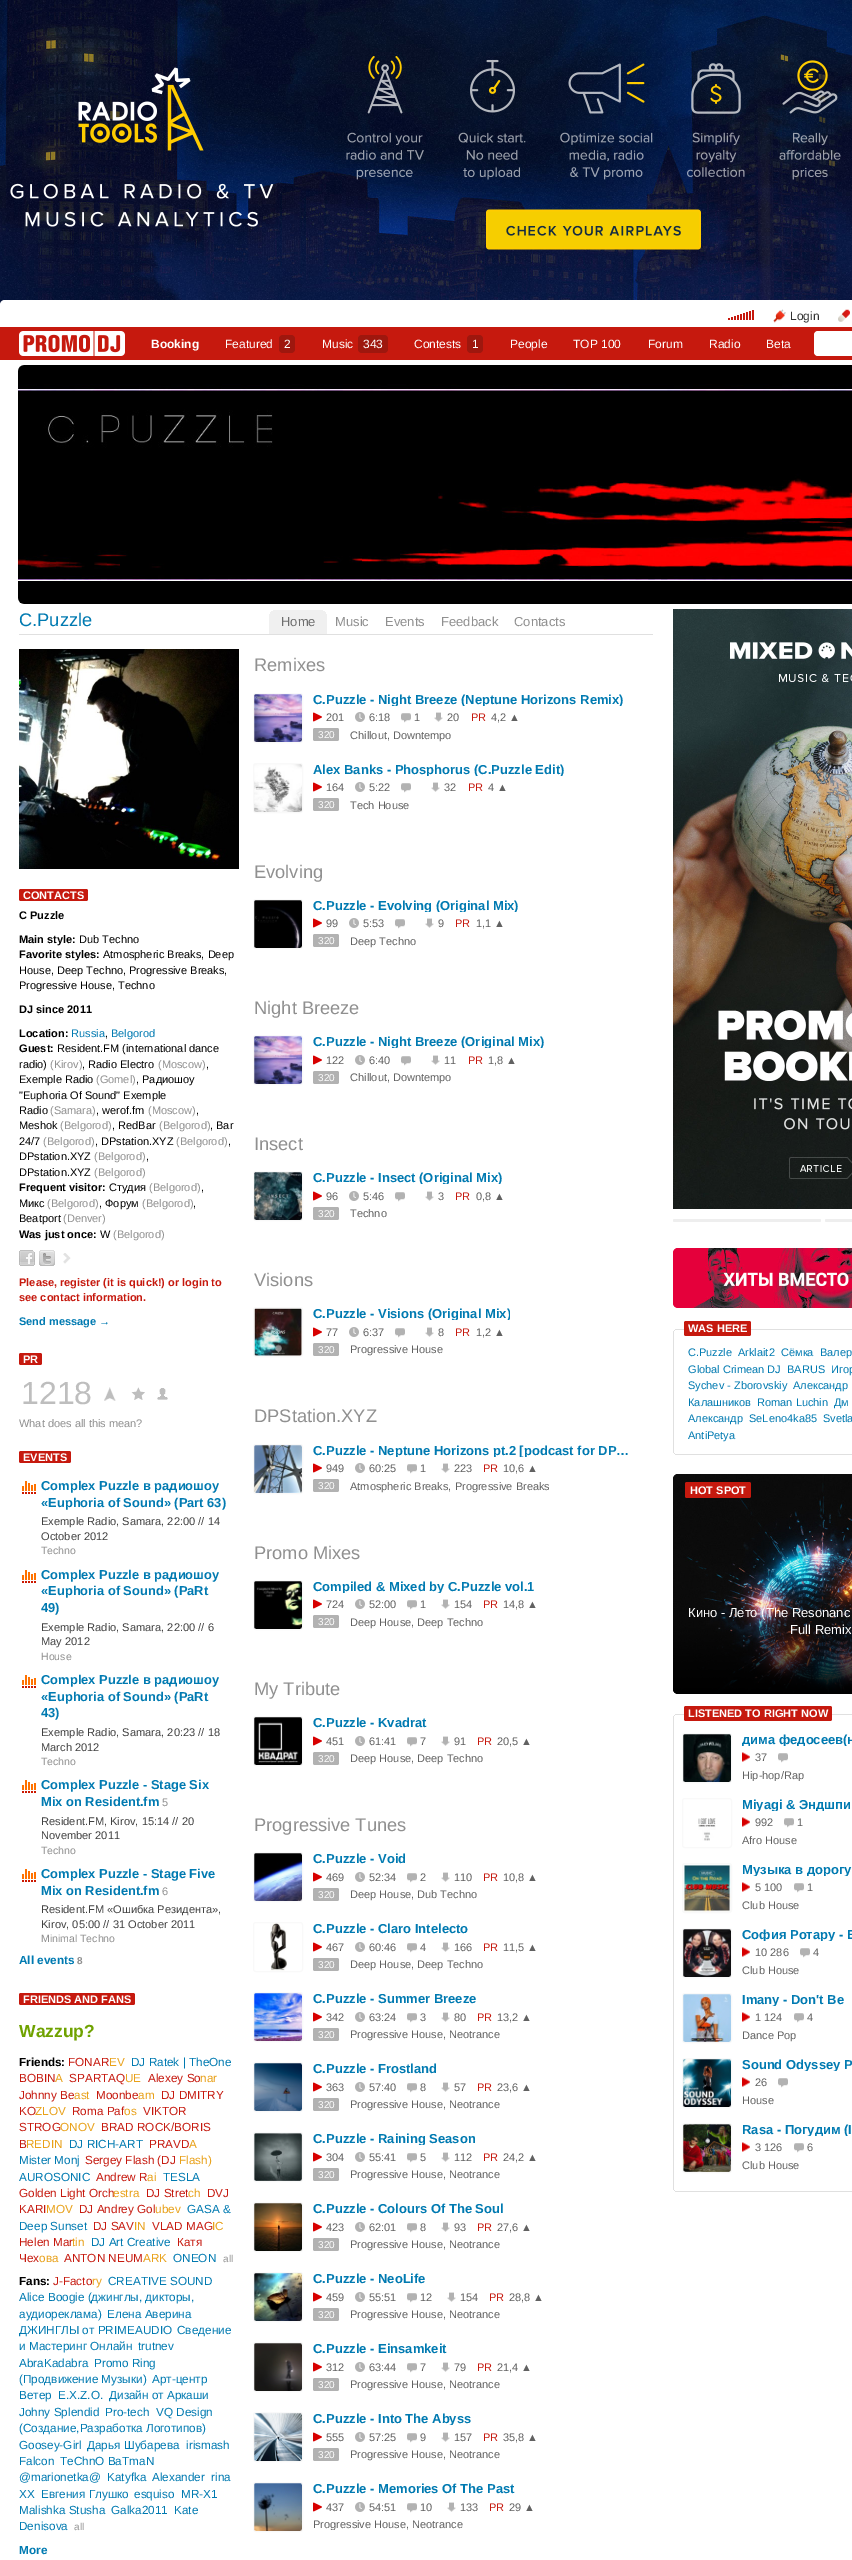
%!PS
<< /PageSize [852 2560] >> setpagedevice
/m/moveto load def
/l/rlineto load def
/c/rcurveto load def
/z/closepath load def
/f/fill load def
/s/stroke load def
/q/gsave load def
/Q_/grestore load def
/C { dup -16 bitshift 255 div exch dup -8 bitshift 255 and 255 div exch 255 and 255 div setrgbcolor } def
/F { [ exch dup neg 0 0 3 -1 roll 0 0 ] selectfont } def
/T { moveto show } def
/R { rectfill } def
/Q { 5 dict begin { /r /h /w /y /x } { exch def } forall
  x r add y moveto x w add y 2 copy h add r arct x w add y h add x 1 index r arct
  x y h add x y r arct x y 2 copy exch w add exch r arct closepath end } def
/I { 5 dict begin { /h /w /y /x /name } { exch def } forall
  gsave x y translate w h scale
  w h 8 [w 0 0 h 0 0] name (r) file false 3 colorimage grestore end } def
0 2560 translate 1 -1 scale
4 setmiterlimit
16#FFFFFF C
0 0 852 2560 R
(1.rgb) 0 0 852 305 I
(2.rgb) 10 56 831 194 I
5 300 m 847 0 l 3 0 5 2 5 5 c 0 22 l -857 0 l 0 -22 l 0 -3 2 -5 5 -5 c z f
16#C6190E C
728 318 2 2 R
731 317 2 3 R
734 316 2 4 R
737 315 2 5 R
740 314 2 6 R
743 313 2 7 R
746 312 2 8 R
749 311 2 9 R
752 310 2 10 R
(3.rgb) 773 309 13 14 I
/LiberationSans-Regular 12 F
16#313131 C
(Login) 790 320 T
(4.rgb) 838 309 12 13 I
16#C6190E C
0 327 852 33 R
(5.rgb) 19 331 106 25 I
/LiberationSans-Bold 12 F
16#FFFFFF C
(Booking) 151 348 T
/LiberationSans-Regular 12 F
(Featured) 225 348 T
16#9E170E C
279 335 16 18 4 Q f
16#FFFFFF C
(2) 284 348 T
(Music) 322 348 T
16#9E170E C
358 335 30 18 4 Q f
16#FFFFFF C
(343) 363 348 T
(Сontests) 414 348 T
16#9E170E C
467 335 16 18 4 Q f
16#FFFFFF C
(1) 472 348 T
(People) 510 348 T
(TOP 100) 573 348 T
(Forum) 648 348 T
(Radio) 709 348 T
(Beta) 766 348 T
814 331 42 25 4 Q f
(6.rgb) 18 365 834 239 I
16#E0E0E0 C
19 634 634 1 R
/LiberationSans-Regular 18.25 F
16#007AB1 C
(C.Puzzle) 19 626 T
16#F0F0F0 C
269 610 58 24 R
(7.rgb) 269 610 4 4 I
(8.rgb) 323 610 4 4 I
/LiberationSans-Regular 13 F
16#6E6E6E C
(Home) 281 626 T
16#909090 C
(Music) 335 626 T
(Events) 385 626 T
(Feedback) 441 626 T
(Contacts) 514 626 T
(9.rgb) 19 649 220 220 I
16#C6190E C
19 889 69 12 2 Q f
/LiberationSans-Bold 11 F
16#FFFFFF C
(CONTACTS) 23 899 T
16#000000 C
(C Puzzle) 19 919 T
(Main style:) 19 943 T
/LiberationSans-Regular 11 F
(Dub Techno) 79 943 T
/LiberationSans-Bold 11 F
(Favorite styles:) 19 958 T
/LiberationSans-Regular 11 F
(Atmospheric Breaks, Deep) 103 958 T
(House, Deep Techno, Progressive Breaks,) 19 974 T
(Progressive House, Techno) 19 989 T
/LiberationSans-Bold 11 F
(DJ since 2011) 19 1013 T
(Location:) 19 1037 T
/LiberationSans-Regular 11 F
16#007AB1 C
(Russia) 71 1037 T
16#000000 C
(,) 105 1037 T
16#007AB1 C
(Belgorod) 111 1037 T
/LiberationSans-Bold 11 F
16#000000 C
(Guest:) 19 1052 T
/LiberationSans-Regular 11 F
(Resident.FM \(international dance) 57 1052 T
(radio\)) 19 1068 T
16#909090 C
(\(Kirov\)) 50 1068 T
16#000000 C
(, Radio Electro) 82 1068 T
16#909090 C
(\(Moscow\)) 158 1068 T
16#000000 C
(,) 206 1068 T
(Exemple Radio) 19 1083 T
16#909090 C
(\(Gomel\)) 96 1083 T
16#000000 C
(, Радиошоу) 136 1083 T
("Euphoria Of Sound" Exemple) 19 1099 T
(Radio) 19 1114 T
16#909090 C
(\(Samara\)) 50 1114 T
16#000000 C
(, werof.fm) 96 1114 T
16#909090 C
(\(Moscow\)) 148 1114 T
16#000000 C
(,) 196 1114 T
(Meshok) 19 1129 T
16#909090 C
(\(Belgorod\)) 60 1129 T
16#000000 C
(, RedBar) 112 1129 T
16#909090 C
(\(Belgorod\)) 159 1129 T
16#000000 C
(, Bar) 210 1129 T
(24/7) 19 1145 T
16#909090 C
(\(Belgorod\)) 43 1145 T
16#000000 C
(, DPstation.XYZ) 95 1145 T
16#909090 C
(\(Belgorod\)) 176 1145 T
16#000000 C
(,) 228 1145 T
(DPstation.XYZ) 19 1160 T
16#909090 C
(\(Belgorod\)) 94 1160 T
16#000000 C
(,) 146 1160 T
(DPstation.XYZ) 19 1176 T
16#909090 C
(\(Belgorod\)) 94 1176 T
/LiberationSans-Bold 11 F
16#000000 C
(Frequent visitor:) 19 1191 T
/LiberationSans-Regular 11 F
(Студия) 109 1191 T
16#909090 C
(\(Belgorod\)) 149 1191 T
16#000000 C
(,) 201 1191 T
(Микс) 19 1207 T
16#909090 C
(\(Belgorod\)) 47 1207 T
16#000000 C
(, Форум) 99 1207 T
16#909090 C
(\(Belgorod\)) 142 1207 T
16#000000 C
(,) 193 1207 T
(Beatport) 19 1222 T
16#909090 C
(\(Denver\)) 63 1222 T
/LiberationSans-Bold 11 F
16#000000 C
(Was just once:) 19 1238 T
/LiberationSans-Regular 11 F
(W) 100 1238 T
16#909090 C
(\(Belgorod\)) 113 1238 T
(10.rgb) 19 1250 16 16 I
(11.rgb) 39 1250 16 16 I
(12.rgb) 63 1253 8 11 I
/LiberationSans-Bold 11 F
16#C6190E C
(Please, register \(it is quick!\) or login to) 19 1286 T
(see contact information.) 19 1301 T
16#007AB1 C
(Send message →) 19 1325 T
16#C6190E C
19 1353 23 12 2 Q f
16#FFFFFF C
(PR) 23 1363 T
/LiberationSans-Regular 32 F
16#BEBEBE C
(1218) 21 1404 T
(13.rgb) 104 1387 12 14 I
(14.rgb) 131 1387 14 13 I
(15.rgb) 157 1388 11 12 I
/LiberationSans-Regular 11 F
16#909090 C
(What does all this mean?) 19 1427 T
16#C6190E C
19 1451 52 12 2 Q f
/LiberationSans-Bold 11 F
16#FFFFFF C
(EVENTS) 23 1461 T
(16.rgb) 22 1481 14 13 I
/LiberationSans-Bold 12.9 F
16#007AB1 C
(Complex Puzzle в радиошоу) 41 1490 T
(«Euphoria of Sound» \(Part 63\)) 41 1507 T
/LiberationSans-Regular 11.1 F
16#414141 C
(Exemple Radio, Samara, 22:00 // 14) 41 1525 T
(October 2012) 41 1540 T
/LiberationSans-Regular 10.5 F
16#909090 C
(Techno) 41 1554 T
(16.rgb) 22 1570 14 13 I
/LiberationSans-Bold 12.9 F
16#007AB1 C
(Complex Puzzle в радиошоу) 41 1579 T
(«Euphoria of Sound» \(PaRt) 41 1595 T
(49\)) 41 1612 T
/LiberationSans-Regular 11.1 F
16#414141 C
(Exemple Radio, Samara, 22:00 // 6) 41 1631 T
(May 2012) 41 1645 T
/LiberationSans-Regular 10.5 F
16#909090 C
(House) 41 1660 T
(16.rgb) 22 1675 14 13 I
/LiberationSans-Bold 12.9 F
16#007AB1 C
(Complex Puzzle в радиошоу) 41 1684 T
(«Euphoria of Sound» \(PaRt) 41 1701 T
(43\)) 41 1717 T
/LiberationSans-Regular 11.1 F
16#414141 C
(Exemple Radio, Samara, 20:23 // 18) 41 1736 T
(March 2012) 41 1751 T
/LiberationSans-Regular 10.5 F
16#909090 C
(Techno) 41 1765 T
(16.rgb) 22 1780 14 13 I
/LiberationSans-Bold 12.9 F
16#007AB1 C
(Complex Puzzle - Stage Six) 41 1789 T
(Mix on Resident.fm) 41 1806 T
/LiberationSans-Regular 11 F
16#909090 C
(5) 162 1806 T
/LiberationSans-Regular 11.1 F
16#414141 C
(Resident.FM, Kirov, 15:14 // 20) 41 1825 T
(November 2011) 41 1839 T
/LiberationSans-Regular 10.5 F
16#909090 C
(Techno) 41 1854 T
(16.rgb) 22 1869 14 13 I
/LiberationSans-Bold 12.9 F
16#007AB1 C
(Complex Puzzle - Stage Five) 41 1878 T
(Mix on Resident.fm) 41 1895 T
/LiberationSans-Regular 11 F
16#909090 C
(6) 162 1895 T
/LiberationSans-Regular 11.1 F
16#414141 C
(Resident.FM «Ошибка Резидента»,) 41 1913 T
(Kirov, 05:00 // 31 October 2011) 41 1928 T
/LiberationSans-Regular 10.5 F
16#909090 C
(Minimal Techno) 41 1942 T
/LiberationSans-Bold 11.75 F
16#007AB1 C
(All events) 19 1964 T
/LiberationSans-Bold 10 F
16#909090 C
(8) 77 1964 T
16#C6190E C
19 1993 116 12 2 Q f
/LiberationSans-Bold 11 F
16#FFFFFF C
(FRIENDS AND FANS) 23 2003 T
/LiberationSans-Bold 17.5 F
16#6FA200 C
(Wazzup?) 19 2037 T
/LiberationSans-Bold 11.75 F
16#000000 C
(Friends:) 19 2066 T
/LiberationSans-Regular 11.75 F
16#C6190E C
(FONAR) 68 2066 T
16#E9A118 C
(EV) 109 2066 T
16#007AB1 C
(DJ Ratek | TheOne) 131 2066 T
16#C6190E C
(BOBIN) 19 2082 T
16#E9A118 C
(A) 55 2082 T
16#C6190E C
(SPARTAQ) 69 2082 T
16#E9A118 C
(UE) 125 2082 T
16#C6190E C
(Alexey So) 148 2082 T
16#E9A118 C
(nar) 200 2082 T
16#C6190E C
(Johnny Be) 19 2099 T
16#E9A118 C
(ast) 74 2099 T
16#C6190E C
(Moonbe) 96 2099 T
16#E9A118 C
(am) 138 2099 T
16#C6190E C
(DJ DMITRY) 161 2099 T
(KO) 19 2115 T
16#E9A118 C
(ZLOV) 35 2115 T
16#C6190E C
(Roma Paf) 72 2115 T
16#E9A118 C
(os) 124 2115 T
16#C6190E C
(VIKTOR) 143 2115 T
(STROG) 19 2131 T
16#E9A118 C
(ONOV) 60 2131 T
16#C6190E C
(BRAD ROCK/BORIS) 101 2131 T
(B) 19 2148 T
16#E9A118 C
(REDIN) 26 2148 T
16#007AB1 C
(DJ RICH-ART) 69 2148 T
16#C6190E C
(PRAVD) 149 2148 T
16#E9A118 C
(A) 189 2148 T
16#007AB1 C
(Mister Monj) 19 2164 T
16#C6190E C
(Sergey Flash \(DJ) 85 2164 T
16#E9A118 C
(Flash\)) 179 2164 T
16#007AB1 C
(AUROSONIC) 19 2181 T
16#C6190E C
(Andrew R) 96 2181 T
16#E9A118 C
(ai) 147 2181 T
16#007AB1 C
(TESLA) 163 2181 T
16#C6190E C
(Golden Light Orch) 19 2197 T
16#E9A118 C
(estra) 113 2197 T
16#C6190E C
(DJ Stret) 146 2197 T
16#E9A118 C
(ch) 188 2197 T
16#C6190E C
(DVJ) 207 2197 T
(KARI) 19 2213 T
16#E9A118 C
(MOV) 46 2213 T
16#C6190E C
(DJ Andrey Gol) 79 2213 T
16#E9A118 C
(ubev) 155 2213 T
16#007AB1 C
(GASA &) 187 2213 T
(Deep Sunset) 19 2230 T
16#C6190E C
(DJ SAV) 93 2230 T
16#E9A118 C
(IN) 134 2230 T
16#C6190E C
(VLAD MAG) 152 2230 T
16#E9A118 C
(IC) 212 2230 T
16#C6190E C
(Helen Mar) 19 2246 T
16#E9A118 C
(tin) 72 2246 T
16#007AB1 C
(DJ Art Creative) 91 2246 T
16#C6190E C
(Катя) 177 2246 T
(Чех) 19 2262 T
16#E9A118 C
(ова) 39 2262 T
16#C6190E C
(ANTON NEUM) 64 2262 T
16#E9A118 C
(ARK) 143 2262 T
16#007AB1 C
(ONEON) 173 2262 T
/LiberationSans-Regular 10 F
16#909090 C
(all) 223 2262 T
/LiberationSans-Bold 11.75 F
16#000000 C
(Fans:) 19 2285 T
/LiberationSans-Regular 11.75 F
16#C6190E C
(J-Facto) 53 2285 T
16#E9A118 C
(ry) 92 2285 T
16#007AB1 C
(CREATIVE SOUND) 108 2285 T
(Alice Boogie \(джинглы, дикторы,) 19 2301 T
(аудиореклама\)) 19 2318 T
(Елена Аверина) 107 2318 T
(ДЖИНГЛЫ от PRIMEAUDIO) 19 2334 T
(Сведение) 177 2334 T
(и Мастеринг Онлайн) 19 2350 T
(trutnev) 138 2350 T
(AbraKadabra) 19 2367 T
(Promo Ring) 94 2367 T
(\(Продвижение Музыки\)) 19 2383 T
(Арт-центр) 152 2383 T
(Ветер) 19 2399 T
(E.X.Z.O.) 58 2399 T
(Дизайн от Аркаши) 109 2399 T
(Johny Splendid) 19 2416 T
(Pro-tech) 105 2416 T
(VQ Design) 156 2416 T
(\(Создание,Разработка Логотипов\)) 19 2432 T
(Goosey-Girl) 19 2449 T
(Дарья Шубарева) 87 2449 T
(irismash) 186 2449 T
(Falcon) 19 2465 T
(TeChnO BaTmaN) 60 2465 T
(@marionetka@) 19 2481 T
(Katyfka) 107 2481 T
(Alexander) 152 2481 T
(rina) 211 2481 T
(XX) 19 2498 T
(Евгения Глушко) 41 2498 T
(esquiso) 134 2498 T
(MR-X1) 181 2498 T
(Malishka Stusha) 19 2514 T
(Galka2011) 111 2514 T
(Kate) 174 2514 T
(Denisova) 19 2530 T
/LiberationSans-Regular 10 F
16#909090 C
(all) 74 2530 T
/LiberationSans-Bold 11.75 F
16#007AB1 C
(More) 19 2554 T
/LiberationSans-Regular 18.25 F
16#909090 C
(Remixes) 254 671 T
(17.rgb) 254 694 48 48 I
16#F9F9F9 C
253.5 693.5 49 49 2.5 Q s
q
313 693 310 13 rectclip
/LiberationSans-Bold 13 F
16#007AB1 C
(C.Puzzle - Night Breeze \(Neptune Horizons Remix\)) 313 704 T
Q_
(18.rgb) 313 712 9 10 I
/LiberationSans-Regular 11 F
16#616161 C
(201) 326 721 T
(19.rgb) 355 712 10 10 I
(6:18) 369 721 T
(20.rgb) 401 713 10 10 I
(1) 414 721 T
(21.rgb) 434 712 9 10 I
(20) 447 721 T
16#C6190E C
(PR) 471 721 T
16#616161 C
(4,2 ▲) 491 721 T
16#B2B2B2 C
313 728 26 13 2 Q f
/LiberationSans-Regular 10 F
16#FFFFFF C
(320) 318 738 T
/LiberationSans-Regular 11 F
16#616161 C
(Chillout, Downtempo) 350 739 T
(22.rgb) 254 764 48 48 I
16#F9F9F9 C
253.5 763.5 49 49 2.5 Q s
q
313 763 251 13 rectclip
/LiberationSans-Bold 13 F
16#007AB1 C
(Alex Banks - Phosphorus \(C.Puzzle Edit\)) 313 774 T
Q_
(18.rgb) 313 782 9 10 I
16#616161 C
(164) 326 791 T
(19.rgb) 355 782 10 10 I
(5:22) 369 791 T
(20.rgb) 401 783 10 10 I
(21.rgb) 431 782 9 10 I
(32) 444 791 T
16#C6190E C
(PR) 468 791 T
16#616161 C
(4 ▲) 488 791 T
16#B2B2B2 C
313 798 26 13 2 Q f
/LiberationSans-Regular 10 F
16#FFFFFF C
(320) 318 808 T
/LiberationSans-Regular 11 F
16#616161 C
(Tech House) 350 809 T
/LiberationSans-Regular 18.25 F
16#909090 C
(Evolving) 254 878 T
(23.rgb) 254 900 48 48 I
16#F9F9F9 C
253.5 899.5 49 49 2.5 Q s
q
313 899 205 13 rectclip
/LiberationSans-Bold 13 F
16#007AB1 C
(C.Puzzle - Evolving \(Original Mix\)) 313 910 T
Q_
(18.rgb) 313 918 9 10 I
/LiberationSans-Regular 11 F
16#616161 C
(99) 326 927 T
(19.rgb) 349 918 10 10 I
(5:53) 363 927 T
(20.rgb) 395 919 10 10 I
(21.rgb) 425 918 9 10 I
(9) 438 927 T
16#C6190E C
(PR) 455 927 T
16#616161 C
(1,1 ▲) 476 927 T
16#B2B2B2 C
313 934 26 13 2 Q f
/LiberationSans-Regular 10 F
16#FFFFFF C
(320) 318 944 T
/LiberationSans-Regular 11 F
16#616161 C
(Deep Techno) 350 945 T
/LiberationSans-Regular 18.25 F
16#909090 C
(Night Breeze) 254 1014 T
(24.rgb) 254 1036 48 48 I
16#F9F9F9 C
253.5 1035.5 49 49 2.5 Q s
q
313 1035 231 13 rectclip
/LiberationSans-Bold 13 F
16#007AB1 C
(C.Puzzle - Night Breeze \(Original Mix\)) 313 1046 T
Q_
(18.rgb) 313 1055 9 10 I
/LiberationSans-Regular 11 F
16#616161 C
(122) 326 1064 T
(19.rgb) 355 1055 10 10 I
(6:40) 369 1064 T
(20.rgb) 401 1056 10 10 I
(21.rgb) 431 1055 9 10 I
(11) 444 1064 T
16#C6190E C
(PR) 468 1064 T
16#616161 C
(1,8 ▲) 488 1064 T
16#B2B2B2 C
313 1071 26 13 2 Q f
/LiberationSans-Regular 10 F
16#FFFFFF C
(320) 318 1081 T
/LiberationSans-Regular 11 F
16#616161 C
(Chillout, Downtempo) 350 1081 T
/LiberationSans-Regular 18.25 F
16#909090 C
(Insect) 254 1150 T
(25.rgb) 254 1172 48 48 I
16#F9F9F9 C
253.5 1171.5 49 49 2.5 Q s
q
313 1171 189 13 rectclip
/LiberationSans-Bold 13 F
16#007AB1 C
(C.Puzzle - Insect \(Original Mix\)) 313 1182 T
Q_
(18.rgb) 313 1191 9 10 I
/LiberationSans-Regular 11 F
16#616161 C
(96) 326 1200 T
(19.rgb) 349 1191 10 10 I
(5:46) 363 1200 T
(20.rgb) 395 1192 10 10 I
(21.rgb) 425 1191 9 10 I
(3) 438 1200 T
16#C6190E C
(PR) 455 1200 T
16#616161 C
(0,8 ▲) 476 1200 T
16#B2B2B2 C
313 1207 26 13 2 Q f
/LiberationSans-Regular 10 F
16#FFFFFF C
(320) 318 1217 T
/LiberationSans-Regular 11 F
16#616161 C
(Techno) 350 1217 T
/LiberationSans-Regular 18.25 F
16#909090 C
(Visions) 254 1286 T
(26.rgb) 254 1308 48 48 I
16#F9F9F9 C
253.5 1307.5 49 49 2.5 Q s
q
313 1307 197 13 rectclip
/LiberationSans-Bold 13 F
16#007AB1 C
(C.Puzzle - Visions \(Original Mix\)) 313 1318 T
Q_
(18.rgb) 313 1327 9 10 I
/LiberationSans-Regular 11 F
16#616161 C
(77) 326 1336 T
(19.rgb) 349 1327 10 10 I
(6:37) 363 1336 T
(20.rgb) 395 1328 10 10 I
(21.rgb) 425 1327 9 10 I
(8) 438 1336 T
16#C6190E C
(PR) 455 1336 T
16#616161 C
(1,2 ▲) 476 1336 T
16#B2B2B2 C
313 1343 26 13 2 Q f
/LiberationSans-Regular 10 F
16#FFFFFF C
(320) 318 1353 T
/LiberationSans-Regular 11 F
16#616161 C
(Progressive House) 350 1353 T
/LiberationSans-Regular 18.25 F
16#909090 C
(DPStation.XYZ) 254 1422 T
(27.rgb) 254 1445 48 48 I
16#F9F9F9 C
253.5 1444.5 49 49 2.5 Q s
q
313 1444 319 13 rectclip
/LiberationSans-Bold 13 F
16#007AB1 C
(C.Puzzle - Neptune Horizons pt.2 [podcast for DP…) 313 1455 T
Q_
(18.rgb) 313 1463 9 10 I
/LiberationSans-Regular 11 F
16#616161 C
(949) 326 1472 T
(19.rgb) 355 1463 10 10 I
(60:25) 369 1472 T
(20.rgb) 407 1464 10 10 I
(1) 420 1472 T
(21.rgb) 441 1463 9 10 I
(223) 454 1472 T
16#C6190E C
(PR) 483 1472 T
16#616161 C
(10,6 ▲) 503 1472 T
16#B2B2B2 C
313 1479 26 13 2 Q f
/LiberationSans-Regular 10 F
16#FFFFFF C
(320) 318 1489 T
/LiberationSans-Regular 11 F
16#616161 C
(Atmospheric Breaks, Progressive Breaks) 350 1490 T
/LiberationSans-Regular 18.25 F
16#909090 C
(Promo Mixes) 254 1559 T
(28.rgb) 254 1581 48 48 I
16#F9F9F9 C
253.5 1580.5 49 49 2.5 Q s
q
313 1580 221 13 rectclip
/LiberationSans-Bold 13 F
16#007AB1 C
(Compiled & Mixed by C.Puzzle vol.1) 313 1591 T
Q_
(18.rgb) 313 1599 9 10 I
/LiberationSans-Regular 11 F
16#616161 C
(724) 326 1608 T
(19.rgb) 355 1599 10 10 I
(52:00) 369 1608 T
(20.rgb) 407 1600 10 10 I
(1) 420 1608 T
(21.rgb) 441 1599 9 10 I
(154) 454 1608 T
16#C6190E C
(PR) 483 1608 T
16#616161 C
(14,8 ▲) 503 1608 T
16#B2B2B2 C
313 1615 26 13 2 Q f
/LiberationSans-Regular 10 F
16#FFFFFF C
(320) 318 1625 T
/LiberationSans-Regular 11 F
16#616161 C
(Deep House, Deep Techno) 350 1626 T
/LiberationSans-Regular 18.25 F
16#909090 C
(My Tribute) 254 1695 T
(29.rgb) 254 1717 48 48 I
16#F9F9F9 C
253.5 1716.5 49 49 2.5 Q s
/LiberationSans-Bold 13 F
16#007AB1 C
(C.Puzzle - Kvadrat) 313 1727 T
(18.rgb) 313 1736 9 10 I
/LiberationSans-Regular 11 F
16#616161 C
(451) 326 1745 T
(19.rgb) 355 1736 10 10 I
(61:41) 369 1745 T
(20.rgb) 407 1737 10 10 I
(7) 420 1745 T
(21.rgb) 441 1736 9 10 I
(91) 454 1745 T
16#C6190E C
(PR) 477 1745 T
16#616161 C
(20,5 ▲) 497 1745 T
16#B2B2B2 C
313 1752 26 13 2 Q f
/LiberationSans-Regular 10 F
16#FFFFFF C
(320) 318 1762 T
/LiberationSans-Regular 11 F
16#616161 C
(Deep House, Deep Techno) 350 1762 T
/LiberationSans-Regular 18.25 F
16#909090 C
(Progressive Tunes) 254 1831 T
(30.rgb) 254 1853 48 48 I
16#F9F9F9 C
253.5 1852.5 49 49 2.5 Q s
/LiberationSans-Bold 13 F
16#007AB1 C
(C.Puzzle - Void) 313 1863 T
(18.rgb) 313 1872 9 10 I
/LiberationSans-Regular 11 F
16#616161 C
(469) 326 1881 T
(19.rgb) 355 1872 10 10 I
(52:34) 369 1881 T
(20.rgb) 407 1873 10 10 I
(2) 420 1881 T
(21.rgb) 441 1872 9 10 I
(110) 454 1881 T
16#C6190E C
(PR) 483 1881 T
16#616161 C
(10,8 ▲) 503 1881 T
16#B2B2B2 C
313 1888 26 13 2 Q f
/LiberationSans-Regular 10 F
16#FFFFFF C
(320) 318 1898 T
/LiberationSans-Regular 11 F
16#616161 C
(Deep House, Dub Techno) 350 1898 T
(31.rgb) 270 1923 17 48 I
16#F9F9F9 C
253.5 1922.5 49 49 2.5 Q s
/LiberationSans-Bold 13 F
16#007AB1 C
(C.Puzzle - Claro Intelecto) 313 1933 T
(18.rgb) 313 1942 9 10 I
/LiberationSans-Regular 11 F
16#616161 C
(467) 326 1951 T
(19.rgb) 355 1942 10 10 I
(60:46) 369 1951 T
(20.rgb) 407 1943 10 10 I
(4) 420 1951 T
(21.rgb) 441 1942 9 10 I
(166) 454 1951 T
16#C6190E C
(PR) 483 1951 T
16#616161 C
(11,5 ▲) 503 1951 T
16#B2B2B2 C
313 1958 26 13 2 Q f
/LiberationSans-Regular 10 F
16#FFFFFF C
(320) 318 1968 T
/LiberationSans-Regular 11 F
16#616161 C
(Deep House, Deep Techno) 350 1968 T
(32.rgb) 254 1993 48 48 I
16#F9F9F9 C
253.5 1992.5 49 49 2.5 Q s
/LiberationSans-Bold 13 F
16#007AB1 C
(C.Puzzle - Summer Breeze) 313 2003 T
(18.rgb) 313 2012 9 10 I
/LiberationSans-Regular 11 F
16#616161 C
(342) 326 2021 T
(19.rgb) 355 2012 10 10 I
(63:24) 369 2021 T
(20.rgb) 407 2013 10 10 I
(3) 420 2021 T
(21.rgb) 441 2012 9 10 I
(80) 454 2021 T
16#C6190E C
(PR) 477 2021 T
16#616161 C
(13,2 ▲) 497 2021 T
16#B2B2B2 C
313 2028 26 13 2 Q f
/LiberationSans-Regular 10 F
16#FFFFFF C
(320) 318 2038 T
/LiberationSans-Regular 11 F
16#616161 C
(Progressive House, Neotrance) 350 2038 T
(33.rgb) 254 2063 48 48 I
16#F9F9F9 C
253.5 2062.5 49 49 2.5 Q s
/LiberationSans-Bold 13 F
16#007AB1 C
(C.Puzzle - Frostland) 313 2073 T
(18.rgb) 313 2082 9 10 I
/LiberationSans-Regular 11 F
16#616161 C
(363) 326 2091 T
(19.rgb) 355 2082 10 10 I
(57:40) 369 2091 T
(20.rgb) 407 2083 10 10 I
(8) 420 2091 T
(21.rgb) 441 2082 9 10 I
(57) 454 2091 T
16#C6190E C
(PR) 477 2091 T
16#616161 C
(23,6 ▲) 497 2091 T
16#B2B2B2 C
313 2098 26 13 2 Q f
/LiberationSans-Regular 10 F
16#FFFFFF C
(320) 318 2108 T
/LiberationSans-Regular 11 F
16#616161 C
(Progressive House, Neotrance) 350 2108 T
(34.rgb) 254 2133 48 48 I
16#F9F9F9 C
253.5 2132.5 49 49 2.5 Q s
q
313 2132 162 13 rectclip
/LiberationSans-Bold 13 F
16#007AB1 C
(C.Puzzle - Raining Season) 313 2143 T
Q_
(18.rgb) 313 2152 9 10 I
16#616161 C
(304) 326 2161 T
(19.rgb) 355 2152 10 10 I
(55:41) 369 2161 T
(20.rgb) 407 2153 10 10 I
(5) 420 2161 T
(21.rgb) 441 2152 9 10 I
(112) 454 2161 T
16#C6190E C
(PR) 483 2161 T
16#616161 C
(24,2 ▲) 503 2161 T
16#B2B2B2 C
313 2168 26 13 2 Q f
/LiberationSans-Regular 10 F
16#FFFFFF C
(320) 318 2178 T
/LiberationSans-Regular 11 F
16#616161 C
(Progressive House, Neotrance) 350 2178 T
(35.rgb) 254 2203 48 48 I
16#F9F9F9 C
253.5 2202.5 49 49 2.5 Q s
/LiberationSans-Bold 13 F
16#007AB1 C
(C.Puzzle - Colours Of The Soul) 313 2213 T
(18.rgb) 313 2222 9 10 I
/LiberationSans-Regular 11 F
16#616161 C
(423) 326 2231 T
(19.rgb) 355 2222 10 10 I
(62:01) 369 2231 T
(20.rgb) 407 2223 10 10 I
(8) 420 2231 T
(21.rgb) 441 2222 9 10 I
(93) 454 2231 T
16#C6190E C
(PR) 477 2231 T
16#616161 C
(27,6 ▲) 497 2231 T
16#B2B2B2 C
313 2238 26 13 2 Q f
/LiberationSans-Regular 10 F
16#FFFFFF C
(320) 318 2248 T
/LiberationSans-Regular 11 F
16#616161 C
(Progressive House, Neotrance) 350 2248 T
(36.rgb) 254 2273 48 48 I
16#F9F9F9 C
253.5 2272.5 49 49 2.5 Q s
/LiberationSans-Bold 13 F
16#007AB1 C
(C.Puzzle - NeoLife) 313 2283 T
(18.rgb) 313 2292 9 10 I
/LiberationSans-Regular 11 F
16#616161 C
(459) 326 2301 T
(19.rgb) 355 2292 10 10 I
(55:51) 369 2301 T
(20.rgb) 407 2293 10 10 I
(12) 420 2301 T
(21.rgb) 447 2292 9 10 I
(154) 460 2301 T
16#C6190E C
(PR) 489 2301 T
16#616161 C
(28,8 ▲) 509 2301 T
16#B2B2B2 C
313 2308 26 13 2 Q f
/LiberationSans-Regular 10 F
16#FFFFFF C
(320) 318 2318 T
/LiberationSans-Regular 11 F
16#616161 C
(Progressive House, Neotrance) 350 2318 T
(37.rgb) 254 2343 48 48 I
16#F9F9F9 C
253.5 2342.5 49 49 2.5 Q s
/LiberationSans-Bold 13 F
16#007AB1 C
(C.Puzzle - Einsamkeit) 313 2353 T
(18.rgb) 313 2362 9 10 I
/LiberationSans-Regular 11 F
16#616161 C
(312) 326 2371 T
(19.rgb) 355 2362 10 10 I
(63:44) 369 2371 T
(20.rgb) 407 2363 10 10 I
(7) 420 2371 T
(21.rgb) 441 2362 9 10 I
(79) 454 2371 T
16#C6190E C
(PR) 477 2371 T
16#616161 C
(21,4 ▲) 497 2371 T
16#B2B2B2 C
313 2378 26 13 2 Q f
/LiberationSans-Regular 10 F
16#FFFFFF C
(320) 318 2388 T
/LiberationSans-Regular 11 F
16#616161 C
(Progressive House, Neotrance) 350 2388 T
(38.rgb) 254 2413 48 48 I
16#F9F9F9 C
253.5 2412.5 49 49 2.5 Q s
q
313 2412 158 13 rectclip
/LiberationSans-Bold 13 F
16#007AB1 C
(C.Puzzle - Into The Abyss) 313 2423 T
Q_
(18.rgb) 313 2432 9 10 I
16#616161 C
(555) 326 2441 T
(19.rgb) 355 2432 10 10 I
(57:25) 369 2441 T
(20.rgb) 407 2433 10 10 I
(9) 420 2441 T
(21.rgb) 441 2432 9 10 I
(157) 454 2441 T
16#C6190E C
(PR) 483 2441 T
16#616161 C
(35,8 ▲) 503 2441 T
16#B2B2B2 C
313 2448 26 13 2 Q f
/LiberationSans-Regular 10 F
16#FFFFFF C
(320) 318 2458 T
/LiberationSans-Regular 11 F
16#616161 C
(Progressive House, Neotrance) 350 2458 T
(39.rgb) 254 2483 48 48 I
16#F9F9F9 C
253.5 2482.5 49 49 2.5 Q s
/LiberationSans-Bold 13 F
16#007AB1 C
(C.Puzzle - Memories Of The Past) 313 2493 T
(18.rgb) 313 2502 9 10 I
/LiberationSans-Regular 11 F
16#616161 C
(437) 326 2511 T
(19.rgb) 355 2502 10 10 I
(54:51) 369 2511 T
(20.rgb) 407 2503 10 10 I
(10) 420 2511 T
(21.rgb) 447 2502 9 10 I
(133) 460 2511 T
16#C6190E C
(PR) 489 2511 T
16#616161 C
(29 ▲) 509 2511 T
q
313 2518 149 12 rectclip
(Progressive House,) 313 2528 T
Q_
(Neotrance) 412 2528 T
(40.rgb) 673 609 179 600 I
16#EEEEEE C
673 1219 148 3 1.5 Q f
825 1219 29 3 1.5 Q f
(41.rgb) 673 1248 179 60 I
16#E0E0E0 C
673 1331 1 121 R
673 1329 179 1 R
16#C6190E C
684 1321 67 15 2 Q f
/LiberationSans-Bold 11 F
16#FFFFFF C
(WAS HERE) 688 1332 T
/LiberationSans-Regular 11 F
16#007AB1 C
(C.Puzzle) 688 1356 T
(Arklait2) 738 1356 T
(Сёмка) 781 1356 T
(Валер) 820 1356 T
(Global Crimean DJ) 688 1373 T
(BARUS) 787 1373 T
(Игор) 831 1373 T
(Sychev - Zborovskiy) 688 1389 T
(Александр) 793 1389 T
(Калашников) 688 1406 T
(Roman Luchin) 757 1406 T
(Дм) 834 1406 T
(Александр) 688 1422 T
(SeLeno4ka85) 749 1422 T
(Svetla) 823 1422 T
(AntiPetya) 688 1439 T
(42.rgb) 673 1329 2 2 I
16#E0E0E0 C
673 1454 179 1 R
(43.rgb) 673 1452 2 3 I
(44.rgb) 673 1474 179 220 I
16#C6190E C
685 1482 66 16 2 Q f
/LiberationSans-Bold 11 F
16#FFFFFF C
(HOT SPOT) 690 1494 T
(45.rgb) 673 1607 179 87 I
/LiberationSans-Regular 13 F
(Кино - Лето \(The Resonanc) 688 1617 T
(Full Remix) 790 1634 T
16#E0E0E0 C
673 1716 1 473 R
673 1714 179 1 R
16#C6190E C
684 1706 148 15 2 Q f
/LiberationSans-Bold 11 F
16#FFFFFF C
(LISTENED TO RIGHT NOW) 688 1717 T
(46.rgb) 683 1734 48 48 I
16#F9F9F9 C
682.5 1733.5 49 49 2.5 Q s
q
742 1733 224 13 rectclip
/LiberationSans-Bold 13 F
16#007AB1 C
(дима федосеев\(н) 742 1744 T
Q_
(47.rgb) 742 1752 8 10 I
/LiberationSans-Regular 11 F
16#616161 C
(37) 755 1761 T
(20.rgb) 778 1753 10 10 I
q
742 1769 62 12 rectclip
(Hip-hop/Rap) 742 1779 T
Q_
(48.rgb) 698 1818 18 23 I
16#F9F9F9 C
682.5 1798.5 49 49 2.5 Q s
q
742 1798 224 13 rectclip
/LiberationSans-Bold 13 F
16#007AB1 C
(Miyagi & Эндшпи) 742 1809 T
Q_
(47.rgb) 742 1817 8 10 I
16#616161 C
(992) 755 1826 T
(20.rgb) 784 1818 10 10 I
(1) 797 1826 T
(Afro House) 742 1844 T
(49.rgb) 683 1864 48 48 I
16#F9F9F9 C
682.5 1863.5 49 49 2.5 Q s
q
742 1863 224 13 rectclip
/LiberationSans-Bold 13 F
16#007AB1 C
(Музыка в дорогу) 742 1874 T
Q_
(47.rgb) 742 1882 8 10 I
16#616161 C
(5 100) 755 1891 T
(20.rgb) 794 1883 10 10 I
(1) 807 1891 T
(Club House) 742 1909 T
(50.rgb) 683 1929 48 48 I
16#F9F9F9 C
682.5 1928.5 49 49 2.5 Q s
q
742 1928 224 13 rectclip
/LiberationSans-Bold 13 F
16#007AB1 C
(София Ротару - В) 742 1939 T
Q_
(47.rgb) 742 1947 8 10 I
16#616161 C
(10 286) 755 1956 T
(20.rgb) 800 1948 10 10 I
(4) 813 1956 T
(Club House) 742 1974 T
(51.rgb) 683 1994 48 48 I
16#F9F9F9 C
682.5 1993.5 49 49 2.5 Q s
q
742 1993 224 13 rectclip
/LiberationSans-Bold 13 F
16#007AB1 C
(Imany - Don't Be) 742 2004 T
Q_
(47.rgb) 742 2012 8 10 I
16#616161 C
(1 124) 755 2021 T
(20.rgb) 794 2013 10 10 I
(4) 807 2021 T
(Dance Pop) 742 2039 T
(52.rgb) 683 2059 48 48 I
16#F9F9F9 C
682.5 2058.5 49 49 2.5 Q s
q
742 2058 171 13 rectclip
/LiberationSans-Bold 13 F
16#007AB1 C
(Sound Odyssey P) 742 2069 T
Q_
(47.rgb) 742 2077 8 10 I
16#616161 C
(26) 755 2086 T
(20.rgb) 778 2078 10 10 I
(House) 742 2104 T
(53.rgb) 683 2124 48 48 I
16#F9F9F9 C
682.5 2123.5 49 49 2.5 Q s
q
742 2123 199 13 rectclip
/LiberationSans-Bold 13 F
16#007AB1 C
(Rasa - Погудим \(I) 742 2134 T
Q_
(47.rgb) 742 2142 8 10 I
16#616161 C
(3 126) 755 2151 T
(20.rgb) 794 2143 10 10 I
(6) 807 2151 T
(Club House) 742 2169 T
(42.rgb) 673 1714 2 2 I
16#E0E0E0 C
673 2191 179 1 R
(43.rgb) 673 2189 2 3 I
showpage
